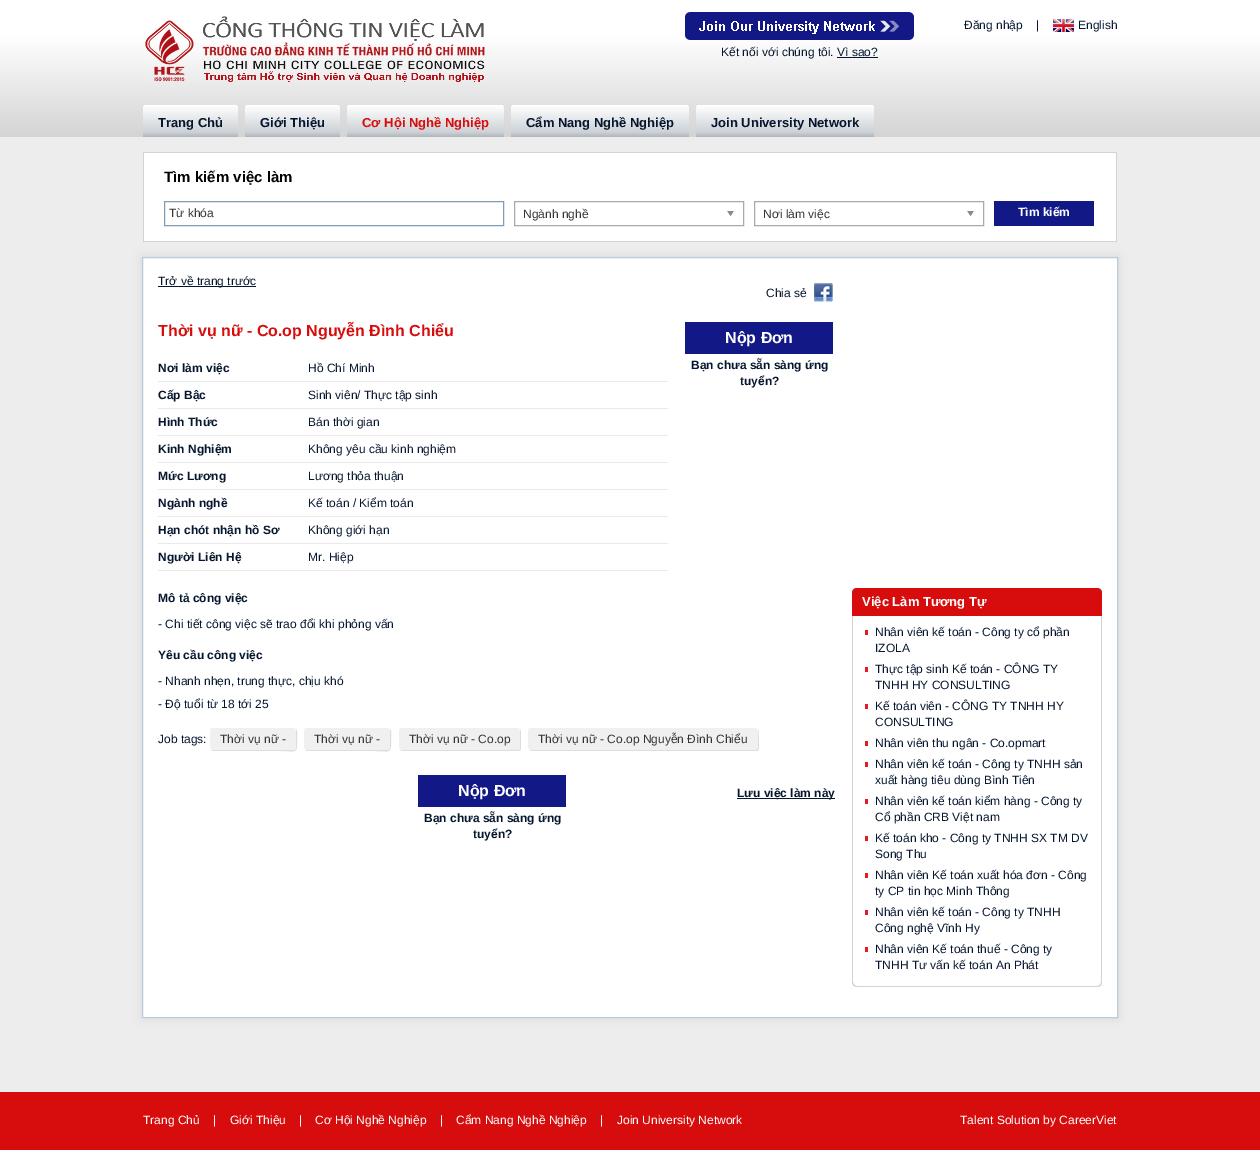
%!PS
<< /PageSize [1260 1150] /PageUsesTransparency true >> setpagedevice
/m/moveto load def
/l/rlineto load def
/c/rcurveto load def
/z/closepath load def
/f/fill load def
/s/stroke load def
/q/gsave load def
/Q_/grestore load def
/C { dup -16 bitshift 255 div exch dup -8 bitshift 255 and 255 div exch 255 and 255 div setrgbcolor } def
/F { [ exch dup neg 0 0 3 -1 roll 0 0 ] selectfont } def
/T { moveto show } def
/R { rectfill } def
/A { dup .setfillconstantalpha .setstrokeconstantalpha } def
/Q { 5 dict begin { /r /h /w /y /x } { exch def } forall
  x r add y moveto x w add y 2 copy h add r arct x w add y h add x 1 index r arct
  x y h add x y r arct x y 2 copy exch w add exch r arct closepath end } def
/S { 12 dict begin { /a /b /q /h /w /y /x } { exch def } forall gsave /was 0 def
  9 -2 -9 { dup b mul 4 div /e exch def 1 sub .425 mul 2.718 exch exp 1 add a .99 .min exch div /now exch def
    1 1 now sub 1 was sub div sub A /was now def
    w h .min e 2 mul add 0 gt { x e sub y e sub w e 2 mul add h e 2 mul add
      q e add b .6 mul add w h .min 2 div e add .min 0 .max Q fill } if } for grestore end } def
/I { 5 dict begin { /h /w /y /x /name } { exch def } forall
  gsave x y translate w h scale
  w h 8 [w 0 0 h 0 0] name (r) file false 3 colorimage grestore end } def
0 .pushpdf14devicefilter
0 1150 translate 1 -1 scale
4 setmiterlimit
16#EDEDED C
0 0 1260 1150 R
q 0 0 m 1260 0 l 0 137 l -1260 0 l z clip newpath
<< /ShadingType 2 /ColorSpace /DeviceRGB /Coords [630 0 630 137] /Extend [true true] /Function << /FunctionType 3 /Domain [0 1] /Functions [<< /FunctionType 2 /Domain [0 1] /C0 [1 1 1] /C1 [1 1 1] /N 1 >> << /FunctionType 2 /Domain [0 1] /C0 [1 1 1] /C1 [.831 .831 .831] /N 1 >>] /Bounds [.26] /Encode [0 1 0 1] >> >> shfill Q_
(1.rgb) 145 16 340 66 I
/LiberationSans-Regular 12 F
16#05162E C
(Đăng nhập) 964 29 T
(|) 1036 29 T
(2.rgb) 1053 19 21 13 I
(English) 1078 29 T
(3.rgb) 685 12 229 28 I
(Kết nối với chúng tôi. Vì sao?) 721 56 T
837 57 41 1 R
q 148 105 m 85 0 l 3 0 5 2 5 4 c 0 28 l -95 0 l 0 -28 l 0 -2 2 -4 5 -4 c z clip newpath
<< /ShadingType 2 /ColorSpace /DeviceRGB /Coords [191 137 191 105] /Extend [true true] /Function << /FunctionType 3 /Domain [0 1] /Functions [<< /FunctionType 2 /Domain [0 1] /C0 [.686 .706 .725] /C1 [.804 .824 .839] /N 1 >> << /FunctionType 2 /Domain [0 1] /C0 [.804 .824 .839] /C1 [1 1 1] /N 1 >>] /Bounds [.15] /Encode [0 1 0 1] >> >> shfill Q_
/LiberationSans-Bold 13 F
(Trang Chủ) 158 127 T
q 250 105 m 85 0 l 3 0 5 2 5 4 c 0 28 l -95 0 l 0 -28 l 0 -2 2 -4 5 -4 c z clip newpath
<< /ShadingType 2 /ColorSpace /DeviceRGB /Coords [293 137 293 105] /Extend [true true] /Function << /FunctionType 3 /Domain [0 1] /Functions [<< /FunctionType 2 /Domain [0 1] /C0 [.686 .706 .725] /C1 [.804 .824 .839] /N 1 >> << /FunctionType 2 /Domain [0 1] /C0 [.804 .824 .839] /C1 [1 1 1] /N 1 >>] /Bounds [.15] /Encode [0 1 0 1] >> >> shfill Q_
(Giới Thiệu) 260 127 T
q 352 105 m 147 0 l 3 0 5 2 5 4 c 0 28 l -157 0 l 0 -28 l 0 -2 2 -4 5 -4 c z clip newpath
<< /ShadingType 2 /ColorSpace /DeviceRGB /Coords [426 137 426 105] /Extend [true true] /Function << /FunctionType 3 /Domain [0 1] /Functions [<< /FunctionType 2 /Domain [0 1] /C0 [.686 .706 .725] /C1 [.804 .824 .839] /N 1 >> << /FunctionType 2 /Domain [0 1] /C0 [.804 .824 .839] /C1 [1 1 1] /N 1 >>] /Bounds [.15] /Encode [0 1 0 1] >> >> shfill Q_
16#D70C0C C
(Cơ Hội Nghề Nghiệp) 362 127 T
q 516 105 m 168 0 l 3 0 5 2 5 4 c 0 28 l -178 0 l 0 -28 l 0 -2 2 -4 5 -4 c z clip newpath
<< /ShadingType 2 /ColorSpace /DeviceRGB /Coords [600 137 600 105] /Extend [true true] /Function << /FunctionType 3 /Domain [0 1] /Functions [<< /FunctionType 2 /Domain [0 1] /C0 [.686 .706 .725] /C1 [.804 .824 .839] /N 1 >> << /FunctionType 2 /Domain [0 1] /C0 [.804 .824 .839] /C1 [1 1 1] /N 1 >>] /Bounds [.15] /Encode [0 1 0 1] >> >> shfill Q_
16#05162E C
(Cẩm Nang Nghề Nghiệp) 526 127 T
q 701 105 m 168 0 l 3 0 5 2 5 4 c 0 28 l -178 0 l 0 -28 l 0 -2 2 -4 5 -4 c z clip newpath
<< /ShadingType 2 /ColorSpace /DeviceRGB /Coords [785 137 785 105] /Extend [true true] /Function << /FunctionType 3 /Domain [0 1] /Functions [<< /FunctionType 2 /Domain [0 1] /C0 [.686 .706 .725] /C1 [.804 .824 .839] /N 1 >> << /FunctionType 2 /Domain [0 1] /C0 [.804 .824 .839] /C1 [1 1 1] /N 1 >>] /Bounds [.15] /Encode [0 1 0 1] >> >> shfill Q_
(Join University Network) 711 127 T
16#FFFFFF C
144 153 972 88 R
16#D3D3D3 C
143 152 974 1 R
1116 152 1 90 R
143 152 1 39 R
/LiberationSans-Bold 15 F
16#000000 C
(Tìm kiếm việc làm) 164 182 T
16#D3D3D3 C
143 241 974 1 R
143 191 1 51 R
16#7F9DB9 C
164.5 201.5 339 24 rectstroke
/LiberationSans-Regular 12 F
16#333333 C
(Từ khóa) 169 217 T
16#AAAAAA C
514.5 201.5 229 24 rectstroke
16#333333 C
(Ngành nghề) 523 218 T
(4.rgb) 727 211 7 6 I
16#AAAAAA C
754.5 201.5 229 24 rectstroke
16#333333 C
(Nơi làm việc) 763 218 T
(4.rgb) 967 211 7 6 I
16#121886 C
994 201 100 25 R
/LiberationSans-Bold 12 F
16#FFFFFF C
(Tìm kiếm) 1018 216 T
16#D2D2D2 C
142 257 976 761 0 5 .75 S
16#FFFFFF C
142.5 257.5 m 975 0 l 0 760 l -975 0 l z q f Q_
16#BCCBD9 C
s
16#05162E C
158 286 98 1 R
/LiberationSans-Regular 12 F
(Trở về trang trước) 158 285 T
(Chia sẻ) 766 297 T
(5.rgb) 814 283 19 19 I
/LiberationSans-Bold 16 F
16#D70C0C C
(Thời vụ nữ - Co.op Nguyễn Đình Chiểu) 158 336 T
16#E9E9E9 C
158 381 510 1 R
/LiberationSans-Bold 12 F
16#05162E C
(Nơi làm việc) 158 372 T
/LiberationSans-Regular 12 F
(Hồ Chí Minh) 308 372 T
16#E9E9E9 C
158 408 510 1 R
/LiberationSans-Bold 12 F
16#05162E C
(Cấp Bậc) 158 399 T
/LiberationSans-Regular 12 F
(Sinh viên/ Thực tập sinh) 308 399 T
16#E9E9E9 C
158 435 510 1 R
/LiberationSans-Bold 12 F
16#05162E C
(Hình Thức) 158 426 T
/LiberationSans-Regular 12 F
(Bán thời gian) 308 426 T
16#E9E9E9 C
158 462 510 1 R
/LiberationSans-Bold 12 F
16#05162E C
(Kinh Nghiệm) 158 453 T
/LiberationSans-Regular 12 F
(Không yêu cầu kinh nghiệm) 308 453 T
16#E9E9E9 C
158 489 510 1 R
/LiberationSans-Bold 12 F
16#05162E C
(Mức Lương) 158 480 T
/LiberationSans-Regular 12 F
(Lương thỏa thuận) 308 480 T
16#E9E9E9 C
158 516 510 1 R
/LiberationSans-Bold 12 F
16#05162E C
(Ngành nghề) 158 507 T
/LiberationSans-Regular 12 F
(Kế toán / Kiểm toán) 308 507 T
16#E9E9E9 C
158 543 510 1 R
/LiberationSans-Bold 12 F
16#05162E C
(Hạn chót nhận hồ Sơ) 158 534 T
/LiberationSans-Regular 12 F
(Không giới hạn) 308 534 T
16#E9E9E9 C
158 570 510 1 R
/LiberationSans-Bold 12 F
16#05162E C
(Người Liên Hệ) 158 561 T
/LiberationSans-Regular 12 F
(Mr. Hiệp) 308 561 T
16#121886 C
685 322 148 32 R
/LiberationSans-Bold 16 F
16#FFFFFF C
(Nộp Đơn) 725 343 T
/LiberationSans-Bold 12 F
16#05162E C
(Bạn chưa sẵn sàng ứng) 691 369 T
(tuyển?) 740 385 T
(Mô tả công việc) 158 602 T
/LiberationSans-Regular 12 F
(- Chi tiết công việc sẽ trao đổi khi phỏng vấn) 158 628 T
/LiberationSans-Bold 12 F
(Yêu cầu công việc) 158 659 T
/LiberationSans-Regular 12 F
(- Nhanh nhẹn, trung thực, chịu khó) 158 685 T
(- Độ tuổi từ 18 tới 25) 158 708 T
(Job tags:) 158 743 T
16#DDDDDD C
211 750 m 2 1 l 68 0 l 14 0 16 3 16 -8 c 0 -3 1 -12 -1 -14 c 0 2 l 0 16 l 0 2 -1 3 -3 3 c -80 0 l z f
16#F0F0F0 C
210 728 86 22 3 Q f
16#333333 C
(Thời vụ nữ -) 220 743 T
16#DDDDDD C
305 750 m 2 1 l 68 0 l 14 0 16 3 16 -8 c 0 -3 1 -12 -1 -14 c 0 2 l 0 16 l 0 2 -1 3 -3 3 c -80 0 l z f
16#F0F0F0 C
304 728 86 22 3 Q f
16#333333 C
(Thời vụ nữ -) 314 743 T
16#DDDDDD C
400 750 m 1 0 2 1 3 1 c 115 0 l 2 0 3 -1 3 -3 c 0 -16 l 0 -1 -1 -2 -1 -3 c 0 2 l 0 16 l 0 2 -1 3 -3 3 c -115 0 l z f
16#F0F0F0 C
399 728 121 22 3 Q f
16#333333 C
(Thời vụ nữ - Co.op) 409 743 T
16#DDDDDD C
529 750 m 1 0 2 1 3 1 c 224 0 l 2 0 3 -1 3 -3 c 0 -16 l 0 -1 -1 -2 -1 -3 c 1 3 0 10 0 13 c 0 2 1 8 -3 8 c -224 0 l z f
16#F0F0F0 C
528 728 230 22 3 Q f
16#333333 C
(Thời vụ nữ - Co.op Nguyễn Đình Chiểu) 538 743 T
16#121886 C
418 775 148 32 R
/LiberationSans-Bold 16 F
16#FFFFFF C
(Nộp Đơn) 458 796 T
/LiberationSans-Bold 12 F
16#05162E C
(Bạn chưa sẵn sàng ứng) 424 822 T
(tuyển?) 473 838 T
737 798 98 1 R
(Lưu việc làm này) 737 797 T
16#D70C0C C
857 588 m 240 0 l 3 0 5 2 5 5 c 0 23 l -250 0 l 0 -23 l 0 -3 2 -5 5 -5 c z f
/LiberationSans-Bold 13 F
16#FFFFFF C
(Việc Làm Tương Tự) 862 606 T
16#D3D3D3 C
852 616 m 250 0 l 0 366 l 0 3 -2 5 -5 5 c -240 0 l -3 0 -5 -2 -5 -5 c z 853 616 m 248 0 l 0 366 l 0 2 -2 4 -4 4 c -240 0 l -2 0 -4 -2 -4 -4 c z eofill
16#E31A22 C
865 630 3 5 R
/LiberationSans-Regular 12 F
16#05162E C
(Nhân viên kế toán - Công ty cổ phần) 875 636 T
(IZOLA) 875 652 T
16#E31A22 C
865 667 3 5 R
16#05162E C
(Thực tập sinh Kế toán - CÔNG TY) 875 673 T
(TNHH HY CONSULTING) 875 689 T
16#E31A22 C
865 704 3 5 R
16#05162E C
(Kế toán viên - CÔNG TY TNHH HY) 875 710 T
(CONSULTING) 875 726 T
16#E31A22 C
865 741 3 5 R
16#05162E C
(Nhân viên thu ngân - Co.opmart) 875 747 T
16#E31A22 C
865 762 3 5 R
16#05162E C
(Nhân viên kế toán - Công ty TNHH sản) 875 768 T
(xuất hàng tiêu dùng Bình Tiên) 875 784 T
16#E31A22 C
865 799 3 5 R
16#05162E C
(Nhân viên kế toán kiểm hàng - Công ty) 875 805 T
(Cổ phần CRB Việt nam) 875 821 T
16#E31A22 C
865 836 3 5 R
16#05162E C
(Kế toán kho - Công ty TNHH SX TM DV) 875 842 T
(Song Thu) 875 858 T
16#E31A22 C
865 873 3 5 R
16#05162E C
(Nhân viên Kế toán xuất hóa đơn - Công) 875 879 T
(ty CP tin học Minh Thông) 875 895 T
16#E31A22 C
865 910 3 5 R
16#05162E C
(Nhân viên kế toán - Công ty TNHH) 875 916 T
(Công nghệ Vĩnh Hy) 875 932 T
16#E31A22 C
865 947 3 5 R
16#05162E C
(Nhân viên Kế toán thuế - Công ty) 875 953 T
(TNHH Tư vấn kế toán An Phát) 875 969 T
16#D70C0C C
0 1092 1260 58 R
16#FFFFFF C
(Trang Chủ) 143 1124 T
(|) 213 1124 T
(Giới Thiệu) 230 1124 T
(|) 299 1124 T
(Cơ Hội Nghề Nghiệp) 315 1124 T
(|) 440 1124 T
(Cẩm Nang Nghề Nghiệp) 456 1124 T
(|) 600 1124 T
(Join University Network) 617 1124 T
(Talent Solution by CareerViet) 960 1124 T
.poppdf14devicefilter showpage
